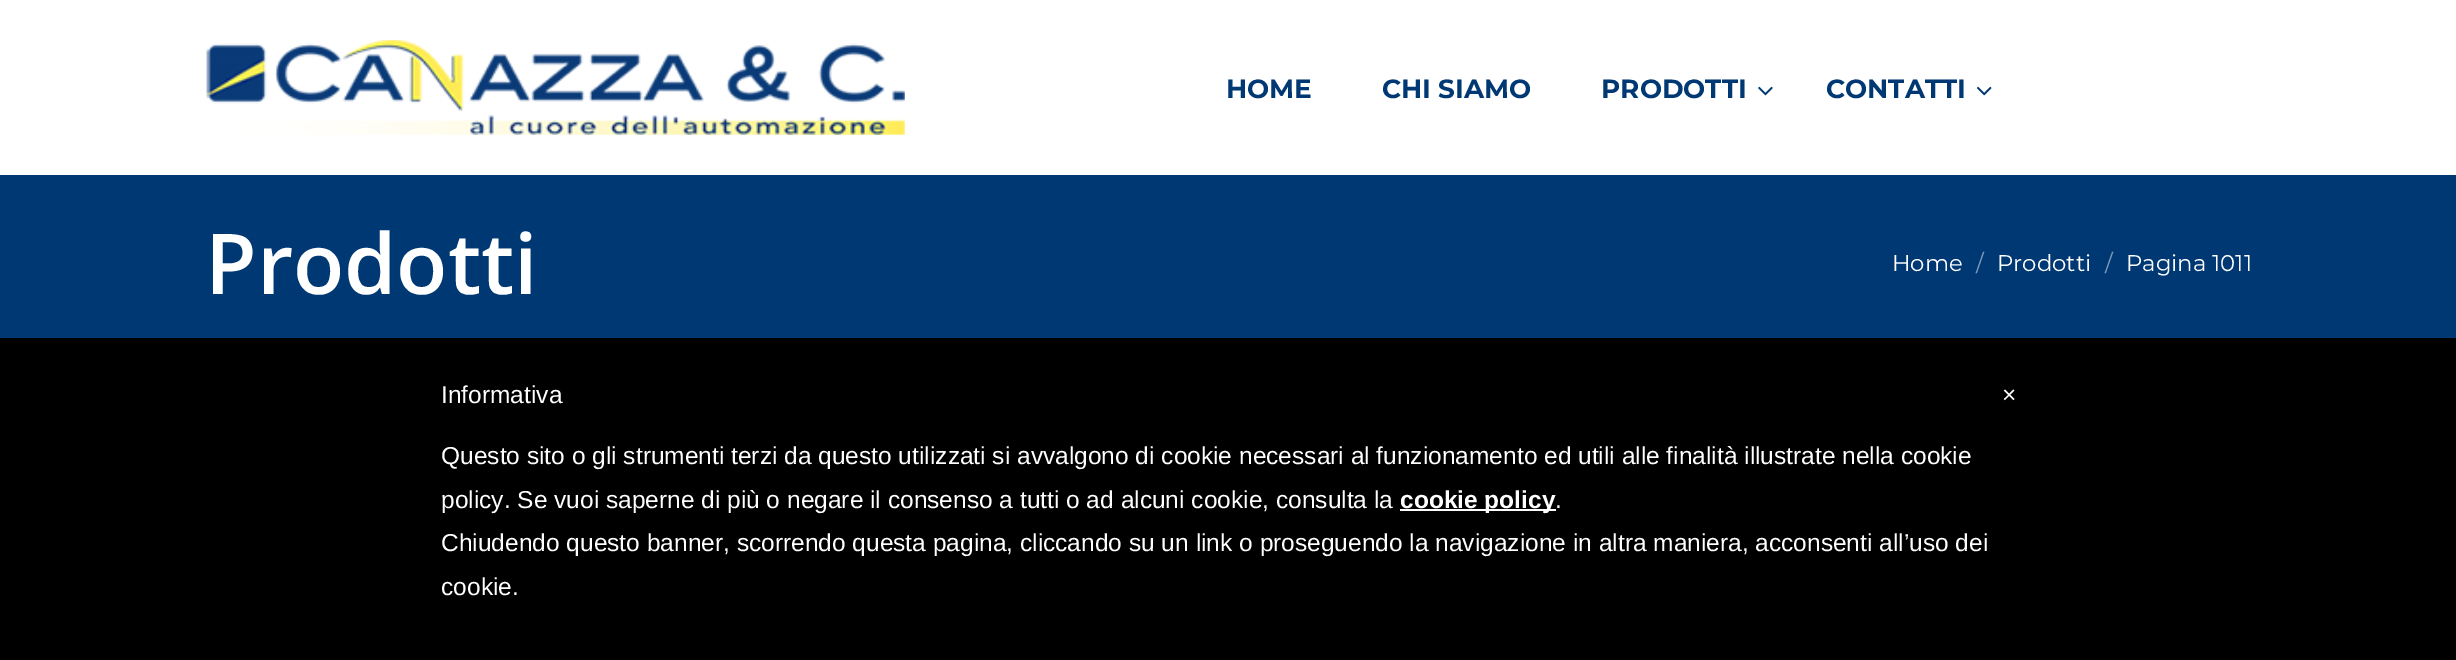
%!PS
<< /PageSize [2456 660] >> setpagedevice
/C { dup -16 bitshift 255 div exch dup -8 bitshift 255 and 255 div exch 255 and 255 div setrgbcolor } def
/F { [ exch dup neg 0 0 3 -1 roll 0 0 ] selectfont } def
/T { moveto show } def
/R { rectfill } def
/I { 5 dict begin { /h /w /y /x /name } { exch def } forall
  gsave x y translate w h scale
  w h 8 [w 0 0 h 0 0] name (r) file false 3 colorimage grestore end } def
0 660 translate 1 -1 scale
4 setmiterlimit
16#FFFFFF C
0 0 2456 660 R
(1.rgb) 206 40 699 95 I
/Montserrat-Bold 26.25 F
16#003873 C
(HOME) 1226 98 T
(CHI SIAMO) 1382 98 T
(PRODOTTI) 1601 98 T
(2.rgb) 1758 86 15 10 I
(CONTATTI) 1826 98 T
(3.rgb) 1977 86 15 10 I
0 175 2456 163 R
/OpenSans-SemiBold 84 F
16#FFFFFF C
(Prodotti) 205 294 T
/Montserrat-Regular 22.75 F
(Home) 1892 271 T
16#809CB9 C
(/) 1976 271 T
16#FFFFFF C
(Prodotti) 1997 271 T
16#809CB9 C
(/) 2105 271 T
16#FFFFFF C
(Pagina 1011) 2126 271 T
16#000000 C
0 338 2456 322 R
/LiberationSans-Regular 24.5 F
16#FFFFFF C
(Informativa) 441 403 T
(Questo sito o gli strumenti terzi da questo utilizzati si avvalgono di cookie necessari al funzionamento ed utili alle finalità illustrate nella cookie) 441 464 T
(policy. Se vuoi saperne di più o negare il consenso a tutti o ad alcuni cookie, consulta la) 441 508 T
1400 509 156 2 R
/LiberationSans-Bold 24.5 F
(cookie policy) 1400 508 T
/LiberationSans-Regular 24.5 F
(.) 1555 508 T
(Chiudendo questo banner, scorrendo questa pagina, cliccando su un link o proseguendo la navigazione in altra maniera, acconsenti all’uso dei) 441 551 T
(cookie.) 441 595 T
(×) 2002 403 T
showpage
